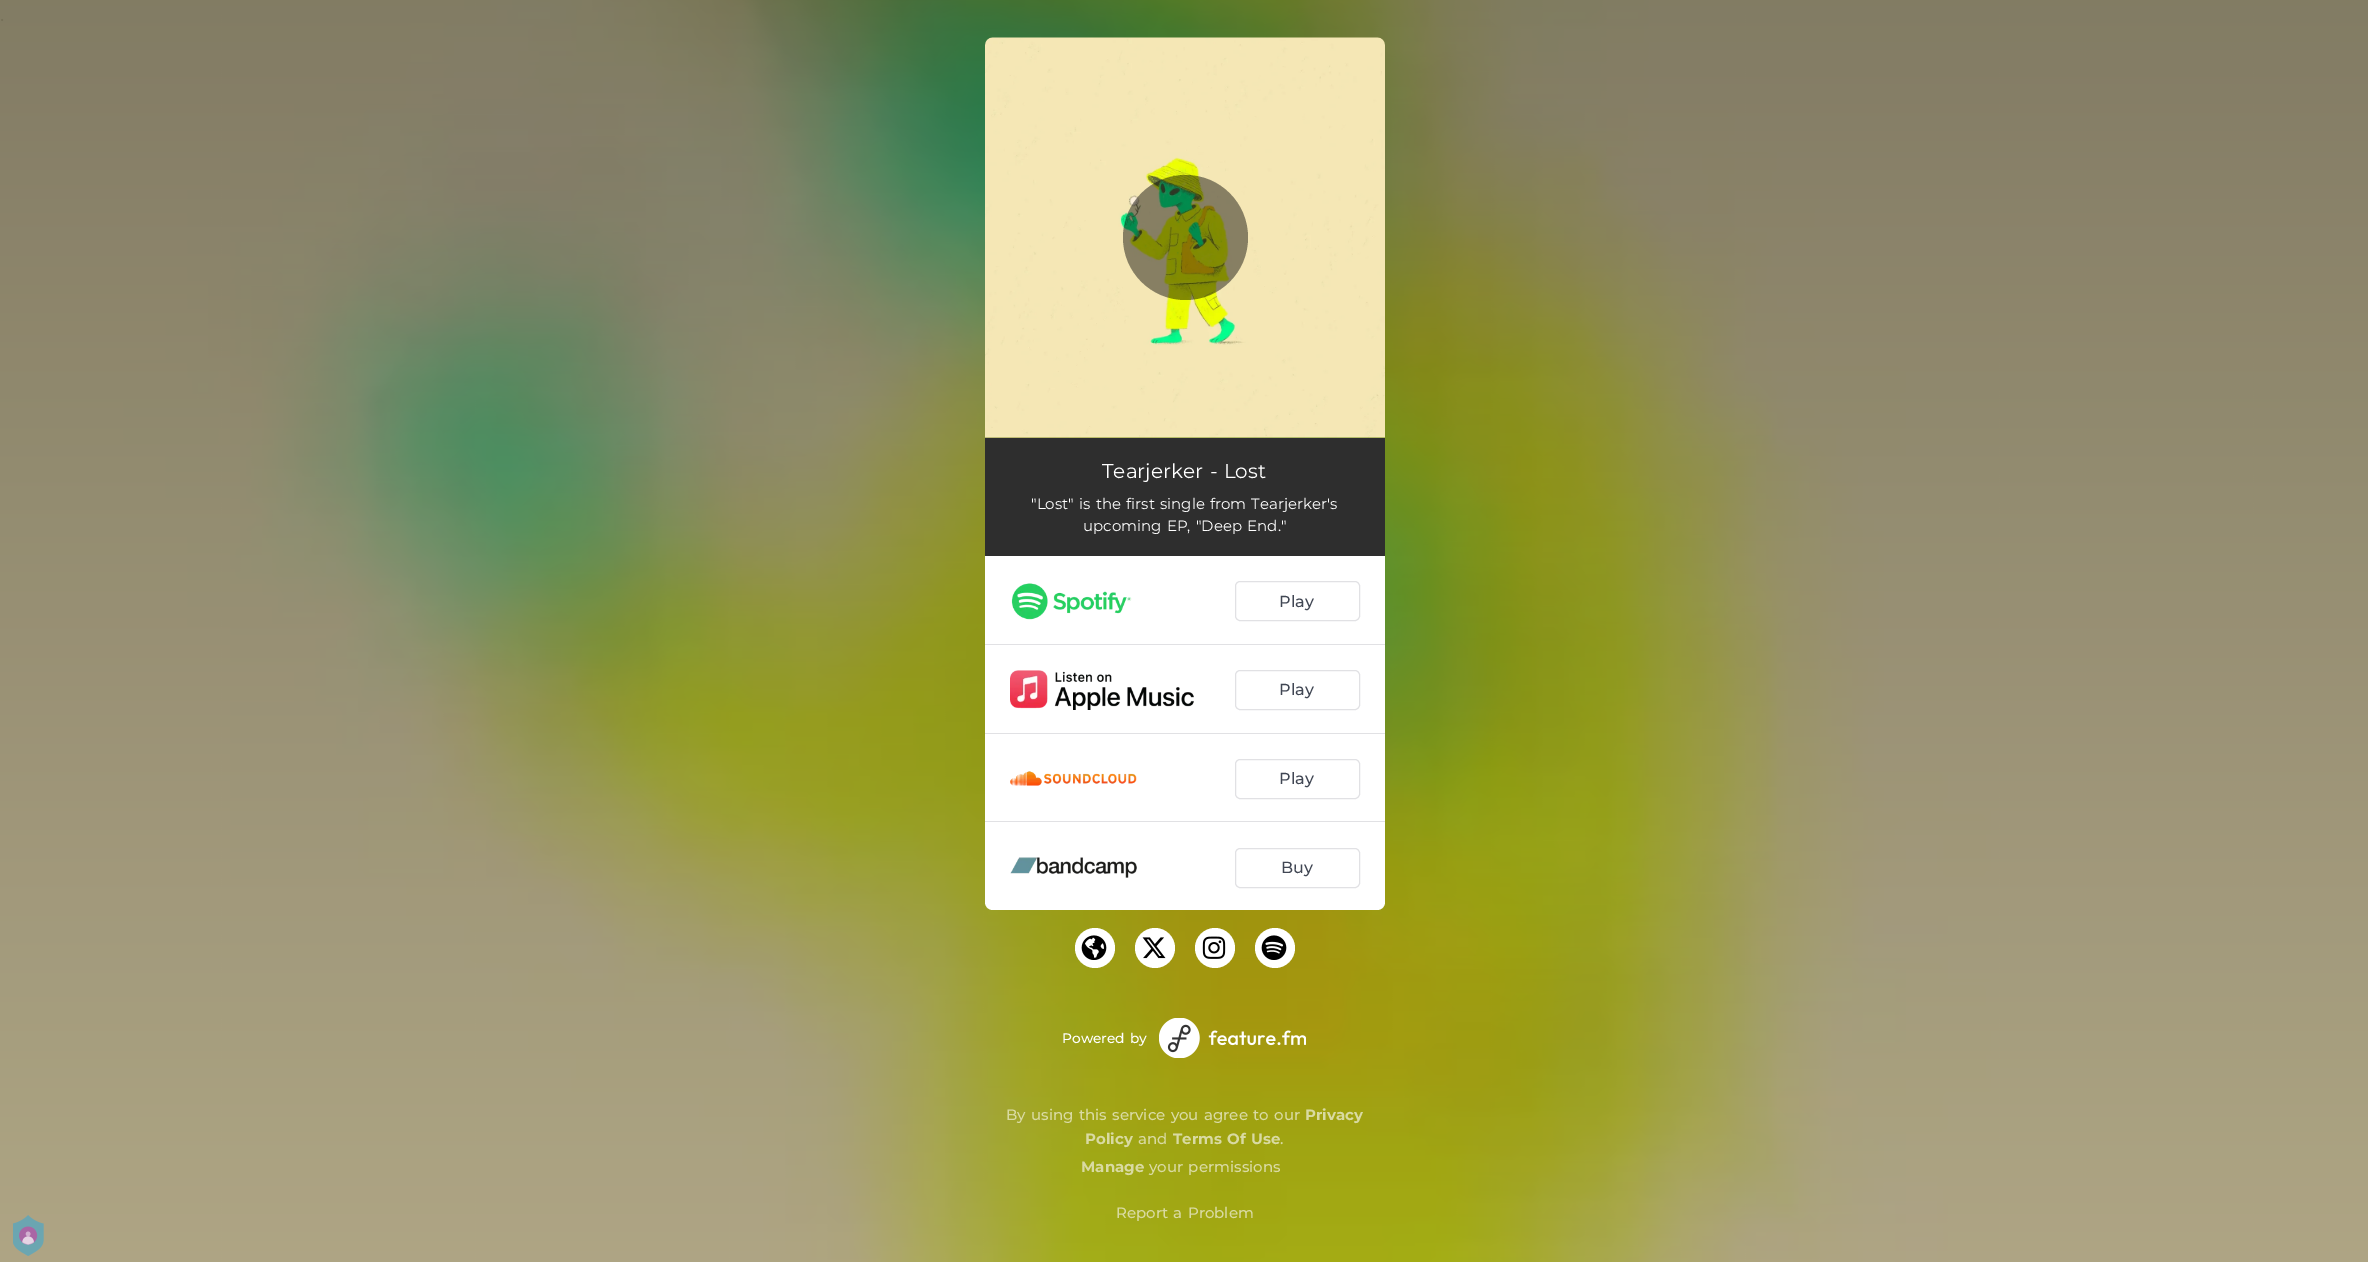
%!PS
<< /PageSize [2368 1262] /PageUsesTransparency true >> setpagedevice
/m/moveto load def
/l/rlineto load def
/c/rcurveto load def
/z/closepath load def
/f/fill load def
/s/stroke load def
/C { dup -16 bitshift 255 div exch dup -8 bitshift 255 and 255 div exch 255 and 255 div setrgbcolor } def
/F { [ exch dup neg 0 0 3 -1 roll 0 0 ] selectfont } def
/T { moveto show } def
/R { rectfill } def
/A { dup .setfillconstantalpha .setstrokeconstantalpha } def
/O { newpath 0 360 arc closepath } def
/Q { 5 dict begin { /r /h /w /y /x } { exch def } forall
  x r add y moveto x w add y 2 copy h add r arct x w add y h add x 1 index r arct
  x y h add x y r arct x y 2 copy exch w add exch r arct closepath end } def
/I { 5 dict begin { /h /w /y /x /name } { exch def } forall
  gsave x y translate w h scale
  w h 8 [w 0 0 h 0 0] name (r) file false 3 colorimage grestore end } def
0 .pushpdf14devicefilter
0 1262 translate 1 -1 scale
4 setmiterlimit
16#FFFFFF C
0 0 2368 1262 R
(1.rgb) 0 0 2368 1262 I
(2.rgb) 985 37 400 401 I
0.45 A
16#000000 C
1185.5 237.5 62.5 O f
1 A
16#2E2E2E C
985 438 400 118 R
/Montserrat-Regular 20 F
16#FFFFFF C
1102 478 m 1.25 0 32 (Tearjerker - Lost) widthshow
/Montserrat-Regular 15 F
1031 509 m 1.25 0 32 ("Lost" is the first single from Tearjerker's) widthshow
1083 531 m 1.25 0 32 (upcoming EP, "Deep End.") widthshow
985 556 m 400 0 l 0 346 l 0 4.5 -3.5 8 -8 8 c -384 0 l -4.5 0 -8 -3.5 -8 -8 c z f
16#E1E1E4 C
985 644 400 1 R
(3.rgb) 1011 583 121 37 I
1235.5 581.5 124 39 4.5 Q s
/Montserrat-Medium 16 F
16#414754 C
(Play) 1279 607 T
16#E1E1E4 C
985 733 400 1 R
(4.rgb) 1010 670 184 40 I
1235.5 670.5 124 39 4.5 Q s
16#414754 C
(Play) 1279 695 T
16#E1E1E4 C
985 821 400 1 R
(5.rgb) 1010 771 127 15 I
1235.5 759.5 124 39 4.5 Q s
16#414754 C
(Play) 1279 784 T
(6.rgb) 1010 857 127 21 I
16#E1E1E4 C
1235.5 848.5 124 39 4.5 Q s
16#414754 C
(Buy) 1281 873 T
16#FFFFFF C
1095 948 20 O f
(7.rgb) 1081 935 26 25 I
1155 948 20 O f
(8.rgb) 1142 937 24 22 I
1215 948 20 O f
(9.rgb) 1202 936 24 23 I
1275 948 20 O f
(10.rgb) 1261 935 26 25 I
/Montserrat-Medium 13.75 F
1062 1043 m 1.25 0 32 (Powered by) widthshow
(11.rgb) 1159 1018 147 40 I
/Montserrat-Medium 15 F
16#D9DAA2 C
1006 1120 m 1.25 0 32 (By using this service you agree to our) widthshow
/Montserrat-Bold 15 F
(Privacy) 1305 1120 T
(Policy) 1085 1144 T
/Montserrat-Medium 15 F
(and) 1138 1144 T
/Montserrat-Bold 15 F
1173 1144 m 1.25 0 32 (Terms Of Use) widthshow
/Montserrat-Medium 15 F
(.) 1280 1144 T
/Montserrat-Bold 15 F
(Manage) 1081 1172 T
/Montserrat-Medium 15 F
1149 1172 m 1.25 0 32 (your permissions) widthshow
1116 1218 m 1.25 0 32 (Report a Problem) widthshow
(12.rgb) 13 1215 31 41 I
.poppdf14devicefilter showpage
